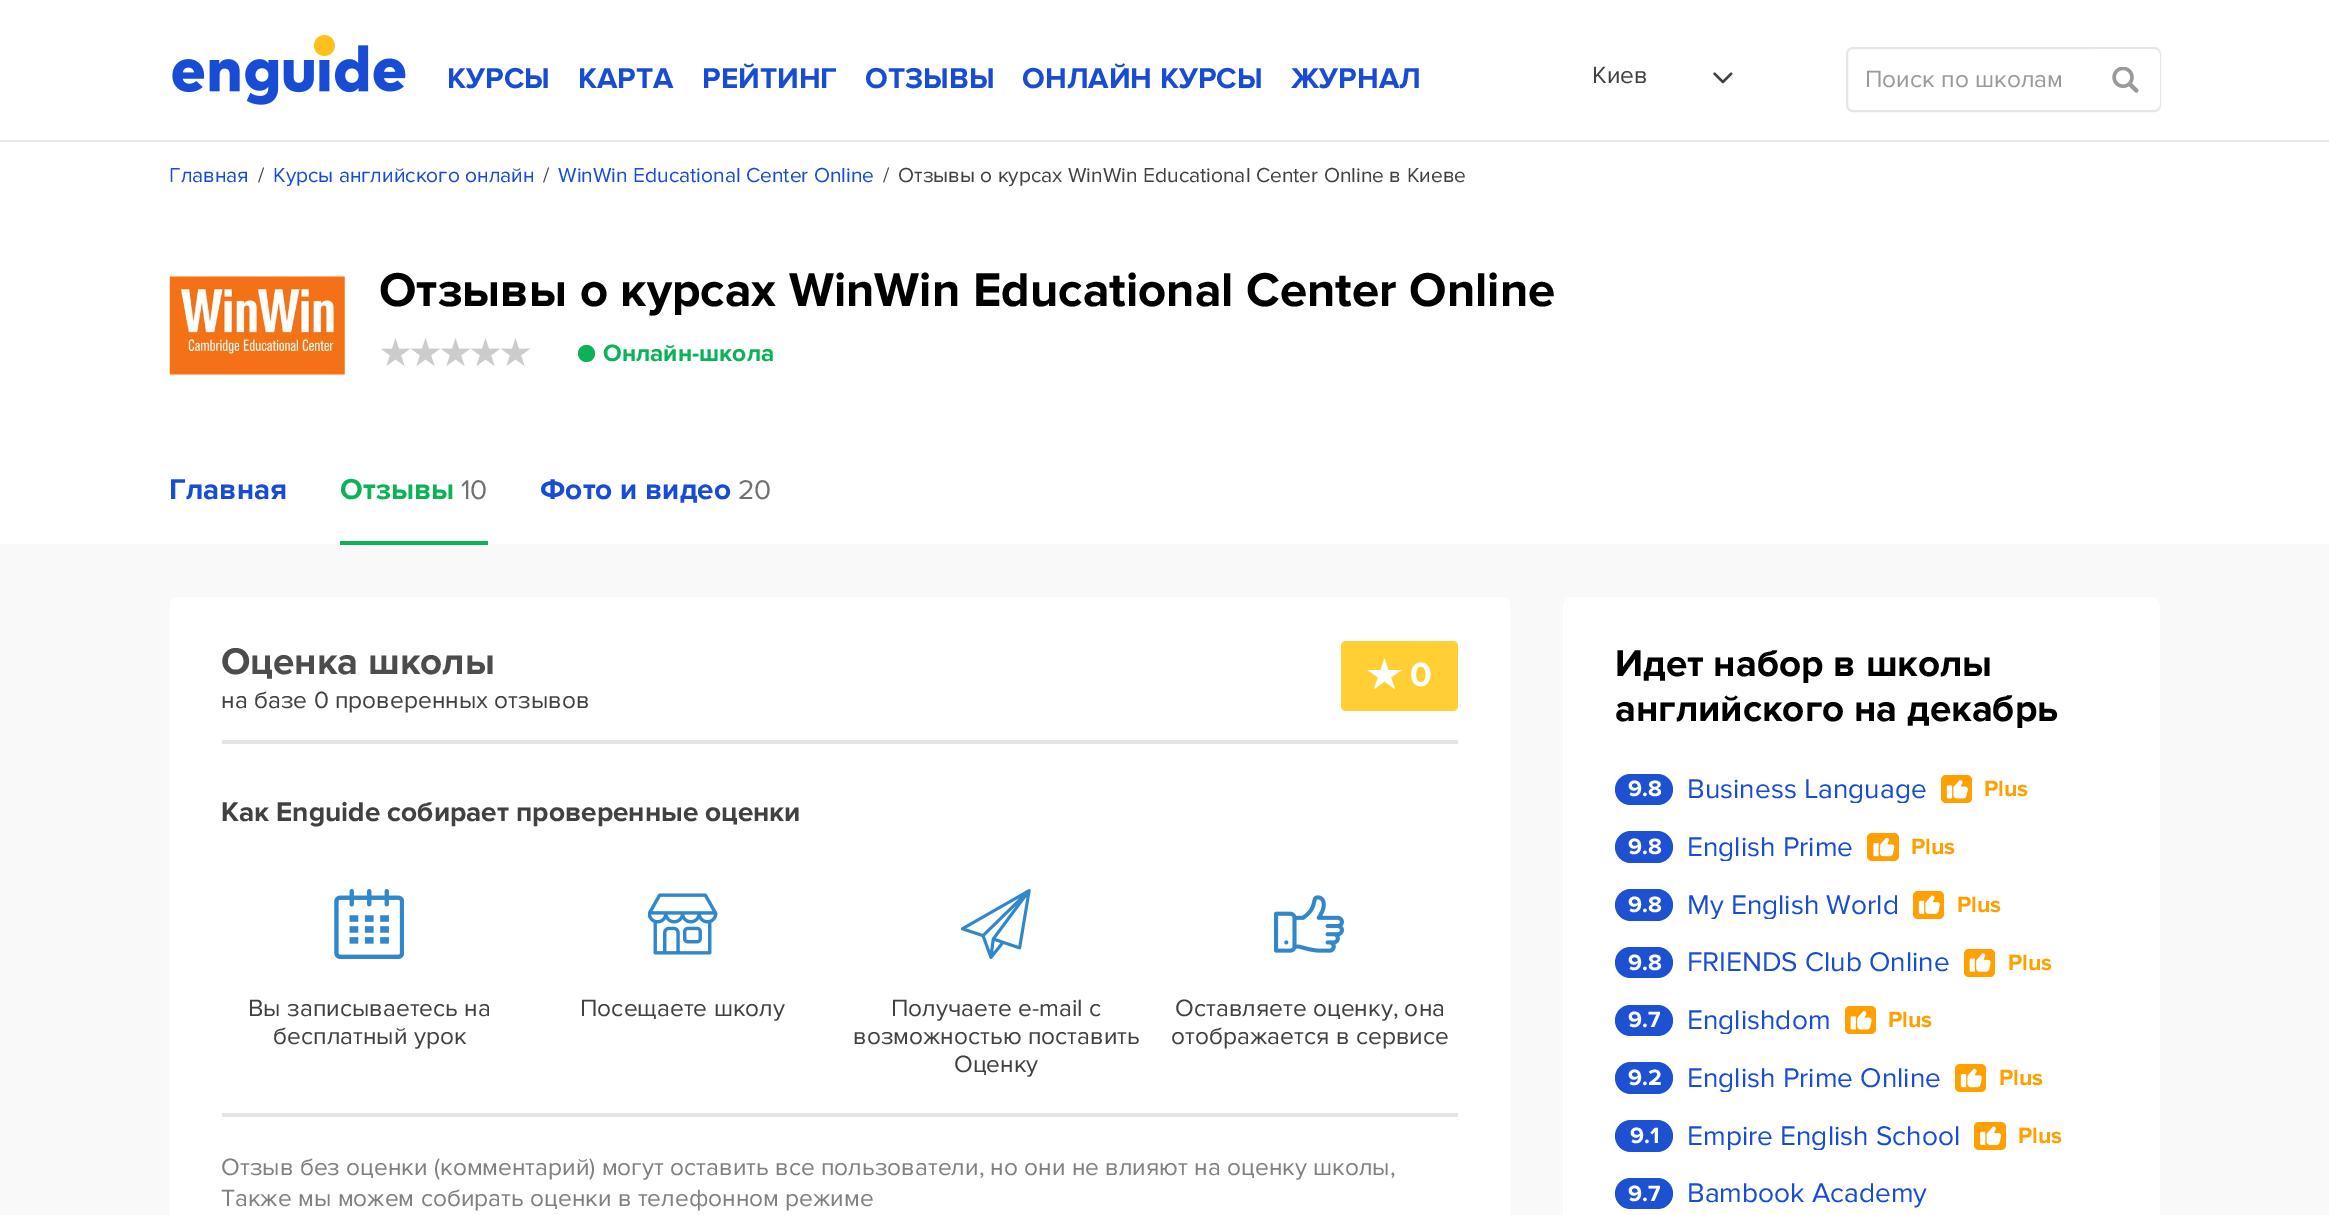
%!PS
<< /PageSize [2329 1215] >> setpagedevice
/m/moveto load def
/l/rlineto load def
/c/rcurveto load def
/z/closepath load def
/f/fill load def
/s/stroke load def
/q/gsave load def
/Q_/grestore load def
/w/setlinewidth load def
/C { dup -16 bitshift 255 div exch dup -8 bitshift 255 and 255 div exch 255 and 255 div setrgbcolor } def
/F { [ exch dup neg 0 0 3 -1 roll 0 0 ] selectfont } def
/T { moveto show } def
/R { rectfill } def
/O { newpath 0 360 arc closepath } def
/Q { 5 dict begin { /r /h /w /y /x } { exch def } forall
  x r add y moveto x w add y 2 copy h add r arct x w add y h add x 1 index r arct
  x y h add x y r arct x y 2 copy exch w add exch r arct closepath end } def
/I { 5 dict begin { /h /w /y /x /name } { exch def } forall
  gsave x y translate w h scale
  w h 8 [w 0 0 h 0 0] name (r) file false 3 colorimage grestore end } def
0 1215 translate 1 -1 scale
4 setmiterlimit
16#FFFFFF C
0 0 2329 1215 R
(1.rgb) 172 35 234 70 I
/ProximaNova-Bold 29.75 F
16#194CD4 C
(КУРСЫ) 447 88 T
(КАРТА) 578 88 T
(РЕЙТИНГ) 702 88 T
(ОТЗЫВЫ) 865 88 T
(ОНЛАЙН КУРСЫ) 1022 88 T
(ЖУРНАЛ) 1291 88 T
/ProximaNova-Regular 24.5 F
16#414141 C
(Киев) 1592 83 T
(2.rgb) 1713 72 20 12 I
16#E6E6E6 C
2 w
1847 48 313 63 6 Q s
16#9A9A9A C
(Поиск по школам) 1865 87 T
16#FFFFFF C
2090 49 m 63 0 l 4 0 7 3 7 7 c 0 47 l 0 4 -3 7 -7 7 c -63 0 l z f
(3.rgb) 2112 67 27 26 I
16#E7E7E7 C
0 140 2329 2 R
/ProximaNova-Regular 21 F
16#194CD4 C
(Главная) 169 182 T
16#414141 C
(/) 258 182 T
16#194CD4 C
(Курсы английского онлайн) 273 182 T
16#414141 C
(/) 543 182 T
16#194CD4 C
(WinWin Educational Center Online) 558 182 T
16#414141 C
(/) 883 182 T
(Отзывы о курсах WinWin Educational Center Online в Киеве) 898 182 T
(4.rgb) 169 276 176 99 I
/ProximaNova-Bold 49 F
16#000000 C
(Отзывы о курсах WinWin Educational Center Online) 379 306 T
(5.rgb) 381 338 150 28 I
16#0BB258 C
586.5 353.5 8.5 O f
/ProximaNova-Bold 24.5 F
(Онлайн-школа) 603 361 T
/ProximaNova-Bold 29.75 F
16#194CD4 C
(Главная) 169 499 T
16#F9F9F9 C
0 544 2329 671 R
16#0BB258 C
340 541 148 4 R
(Отзывы) 340 499 T
/ProximaNova-Regular 28 F
16#707070 C
(10) 461 499 T
/ProximaNova-Bold 29.75 F
16#194CD4 C
(Фото и видео) 540 499 T
/ProximaNova-Regular 28 F
16#707070 C
(20) 738 499 T
16#FFFFFF C
170 597 1340 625 7 Q f
16#E5E5E5 C
222 740 1236 4 R
/ProximaNova-Bold 38.5 F
16#4C4C4C C
(Оценка школы) 221 674 T
/ProximaNova-Regular 24.5 F
16#414141 C
(на базе 0 проверенных отзывов) 221 708 T
16#FFCF33 C
1341 641 117 70 5 Q f
16#FFFFFF C
1401.5 670 m -13 0 l -4 -11.5 l -4 11.5 l -13 0 l 10.5 7.5 l -4 11.5 l 10.5 -7.5 l 10.5 7.5 l -4 -11.5 l z f
/ProximaNova-Bold 35 F
(0) 1410 686 T
/ProximaNova-Bold 28 F
16#414141 C
(Как Enguide собирает проверенные оценки) 221 821 T
(6.rgb) 334 889 70 70 I
/ProximaNova-Regular 24.5 F
(Вы записываетесь на) 248 1016 T
(бесплатный урок) 273 1044 T
(7.rgb) 648 893 70 62 I
(Посещаете школу) 580 1016 T
(8.rgb) 961 889 70 70 I
(Получаете e-mail с) 891 1016 T
(возможностью поставить) 853 1044 T
(Оценку) 954 1072 T
(9.rgb) 1274 895 70 58 I
(Оставляете оценку, она) 1175 1016 T
(отображается в сервисе) 1171 1044 T
16#E5E5E5 C
222 1113 1236 4 R
16#808080 C
(Отзыв без оценки \(комментарий\) могут оставить все пользователи, но они не влияют на оценку школы,) 221 1175 T
(Также мы можем собирать оценки в телефонном режиме) 221 1206 T
16#FFFFFF C
1563 597 597 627 9 Q f
/ProximaNova-Bold 38.5 F
16#000000 C
(Идет набор в школы) 1615 676 T
(английского на декабрь) 1615 721 T
16#1E51D1 C
1615 774 58 31 15.5 Q f
/ProximaNova-Bold 23 F
16#FFFFFF C
(9.8) 1628 796 T
q
1687 775 240 28 rectclip
/ProximaNova-Regular 28 F
16#194CD4 C
(Business Language) 1687 798 T
Q_
16#FFA000 C
1941 775 31 28 5 Q f
(10.rgb) 1946 780 22 19 I
(Plus) 1984 796 T
16#1E51D1 C
1615 831 58 32 16 Q f
16#FFFFFF C
(9.8) 1628 854 T
q
1687 833 166 28 rectclip
/ProximaNova-Regular 28 F
16#194CD4 C
(English Prime) 1687 856 T
Q_
16#FFA000 C
1867 833 32 28 5 Q f
(11.rgb) 1873 837 22 20 I
(Plus) 1911 854 T
16#1E51D1 C
1615 889 58 32 16 Q f
16#FFFFFF C
(9.8) 1628 912 T
q
1687 891 212 28 rectclip
/ProximaNova-Regular 28 F
16#194CD4 C
(My English World) 1687 914 T
Q_
16#FFA000 C
1913 891 31 28 5 Q f
(12.rgb) 1918 895 22 19 I
(Plus) 1957 912 T
16#1E51D1 C
1615 947 58 31 15.5 Q f
16#FFFFFF C
(9.8) 1628 970 T
/ProximaNova-Regular 28 F
16#194CD4 C
(FRIENDS Club Online) 1687 971 T
16#FFA000 C
1964 949 31 28 5 Q f
(13.rgb) 1969 953 22 19 I
/ProximaNova-Bold 23 F
(Plus) 2008 970 T
16#1E51D1 C
1615 1005 58 31 15.5 Q f
16#FFFFFF C
(9.7) 1628 1027 T
q
1687 1006 144 28 rectclip
/ProximaNova-Regular 28 F
16#194CD4 C
(Englishdom) 1687 1029 T
Q_
16#FFA000 C
1845 1006 31 28 5 Q f
(14.rgb) 1850 1011 22 19 I
(Plus) 1888 1027 T
16#1E51D1 C
1615 1062 58 32 16 Q f
16#FFFFFF C
(9.2) 1628 1085 T
q
1687 1064 254 28 rectclip
/ProximaNova-Regular 28 F
16#194CD4 C
(English Prime Online) 1687 1087 T
Q_
16#FFA000 C
1955 1064 31 28 5 Q f
(15.rgb) 1960 1068 22 20 I
(Plus) 1999 1085 T
16#1E51D1 C
1615 1120 58 32 16 Q f
16#FFFFFF C
(9.1) 1630 1143 T
q
1687 1122 273 28 rectclip
/ProximaNova-Regular 28 F
16#194CD4 C
(Empire English School) 1687 1145 T
Q_
16#FFA000 C
1974 1122 32 28 5 Q f
(16.rgb) 1980 1126 22 19 I
(Plus) 2018 1143 T
16#1E51D1 C
1615 1178 58 31 15.5 Q f
16#FFFFFF C
(9.7) 1628 1201 T
/ProximaNova-Regular 28 F
16#194CD4 C
(Bambook Academy) 1687 1202 T
showpage
